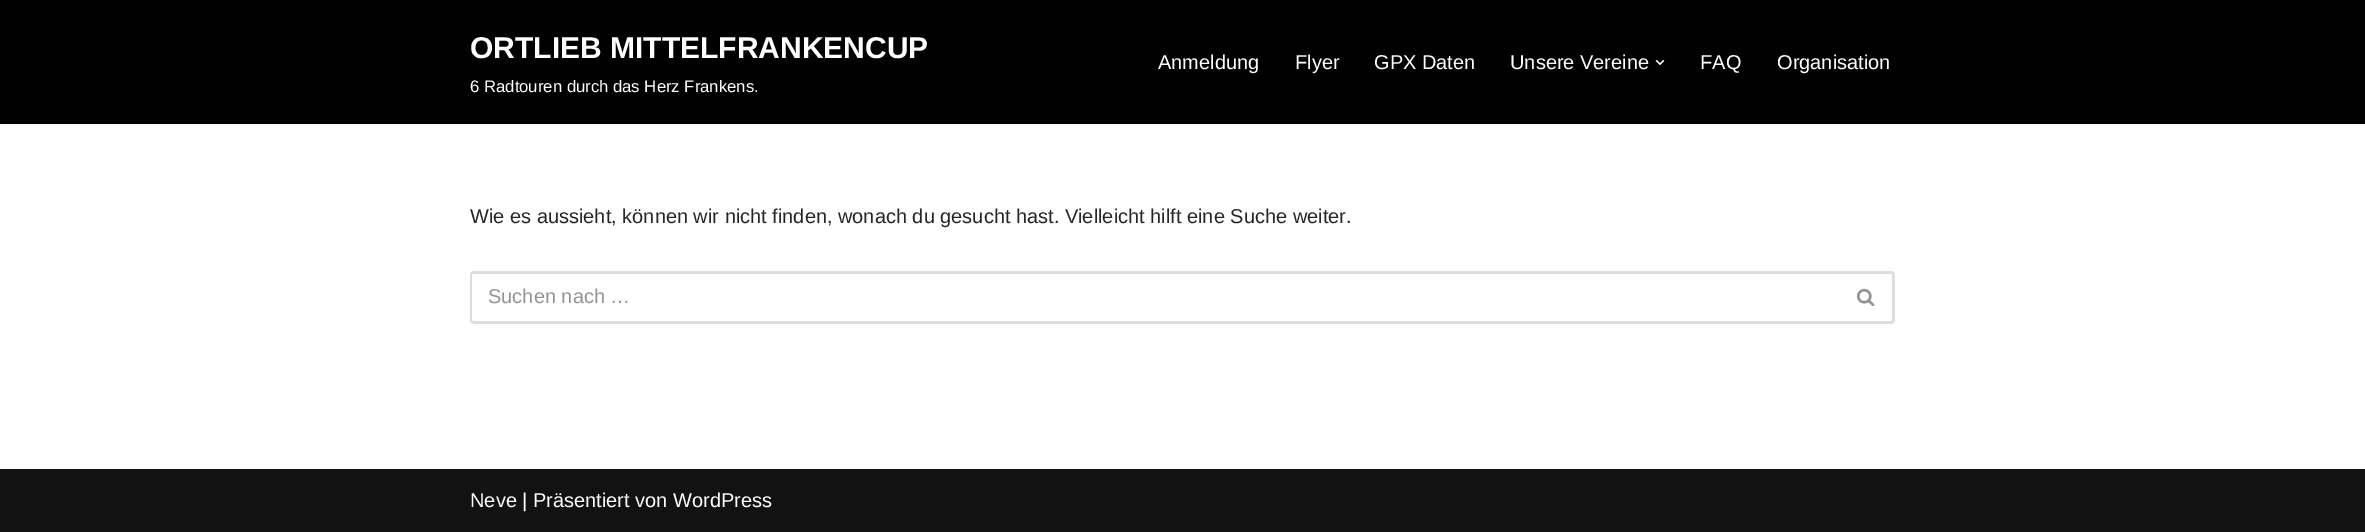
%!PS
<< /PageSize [2365 532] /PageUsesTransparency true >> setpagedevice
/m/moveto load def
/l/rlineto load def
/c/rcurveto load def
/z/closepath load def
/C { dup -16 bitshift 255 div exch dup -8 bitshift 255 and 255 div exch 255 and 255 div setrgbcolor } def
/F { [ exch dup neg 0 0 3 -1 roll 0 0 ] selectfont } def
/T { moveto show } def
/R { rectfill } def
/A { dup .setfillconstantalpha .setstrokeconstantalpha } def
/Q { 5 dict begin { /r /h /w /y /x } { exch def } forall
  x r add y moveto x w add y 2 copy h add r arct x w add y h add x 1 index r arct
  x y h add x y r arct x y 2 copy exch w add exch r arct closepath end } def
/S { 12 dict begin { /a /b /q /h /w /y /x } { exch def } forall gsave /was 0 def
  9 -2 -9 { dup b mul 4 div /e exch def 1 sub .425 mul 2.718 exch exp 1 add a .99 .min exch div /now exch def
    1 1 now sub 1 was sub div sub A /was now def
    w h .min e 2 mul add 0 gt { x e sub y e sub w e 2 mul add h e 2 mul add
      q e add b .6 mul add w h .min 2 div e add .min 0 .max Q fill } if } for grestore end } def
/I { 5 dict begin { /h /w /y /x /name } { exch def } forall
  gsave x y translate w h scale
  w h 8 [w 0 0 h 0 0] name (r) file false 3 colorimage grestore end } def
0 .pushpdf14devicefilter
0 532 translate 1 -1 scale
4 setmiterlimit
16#FFFFFF C
0 0 2365 532 R
16#000000 C
0 -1 2365 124 0 2 .1 S
16#010101 C
0 0 2365 124 R
/LiberationSans-Bold 30 F
16#FFFFFF C
(ORTLIEB MITTELFRANKENCUP) 470 58 T
/LiberationSans-Regular 16.7 F
(6 Radtouren durch das Herz Frankens.) 470 92 T
/LiberationSans-Regular 20 F
(Anmeldung) 1158 69 T
(Flyer) 1295 69 T
(GPX Daten) 1374 69 T
(Unsere Vereine) 1510 69 T
(1.rgb) 1655 60 10 5 I
(FAQ) 1700 69 T
(Organisation) 1777 69 T
16#272626 C
(Wie es aussieht, können wir nicht finden, wonach du gesucht hast. Vielleicht hilft eine Suche weiter.) 470 223 T
16#DDDDDD C
474 271 m 1365 0 l 0 53 l -1365 0 l -2 0 -4 -2 -4 -4 c 0 -45 l 0 -2 2 -4 4 -4 c z 474 274 m 1365 0 l 0 47 l -1365 0 l -1 0 -2 0 -2 -1 c 0 -45 l 0 -1 1 -1 2 -1 c z eofill
16#939393 C
(Suchen nach …) 488 303 T
16#DDDDDD C
1839 271 m 52 0 l 2 0 4 2 4 4 c 0 45 l 0 2 -2 4 -4 4 c -52 0 l z 1839 274 m 52 0 l 1 0 1 0 1 1 c 0 45 l 0 1 0 1 -1 1 c -52 0 l z eofill
(2.rgb) 1856 288 19 18 I
16#121212 C
0 469 2365 63 R
16#FFFFFF C
(Neve | Präsentiert von WordPress) 470 507 T
.poppdf14devicefilter showpage
